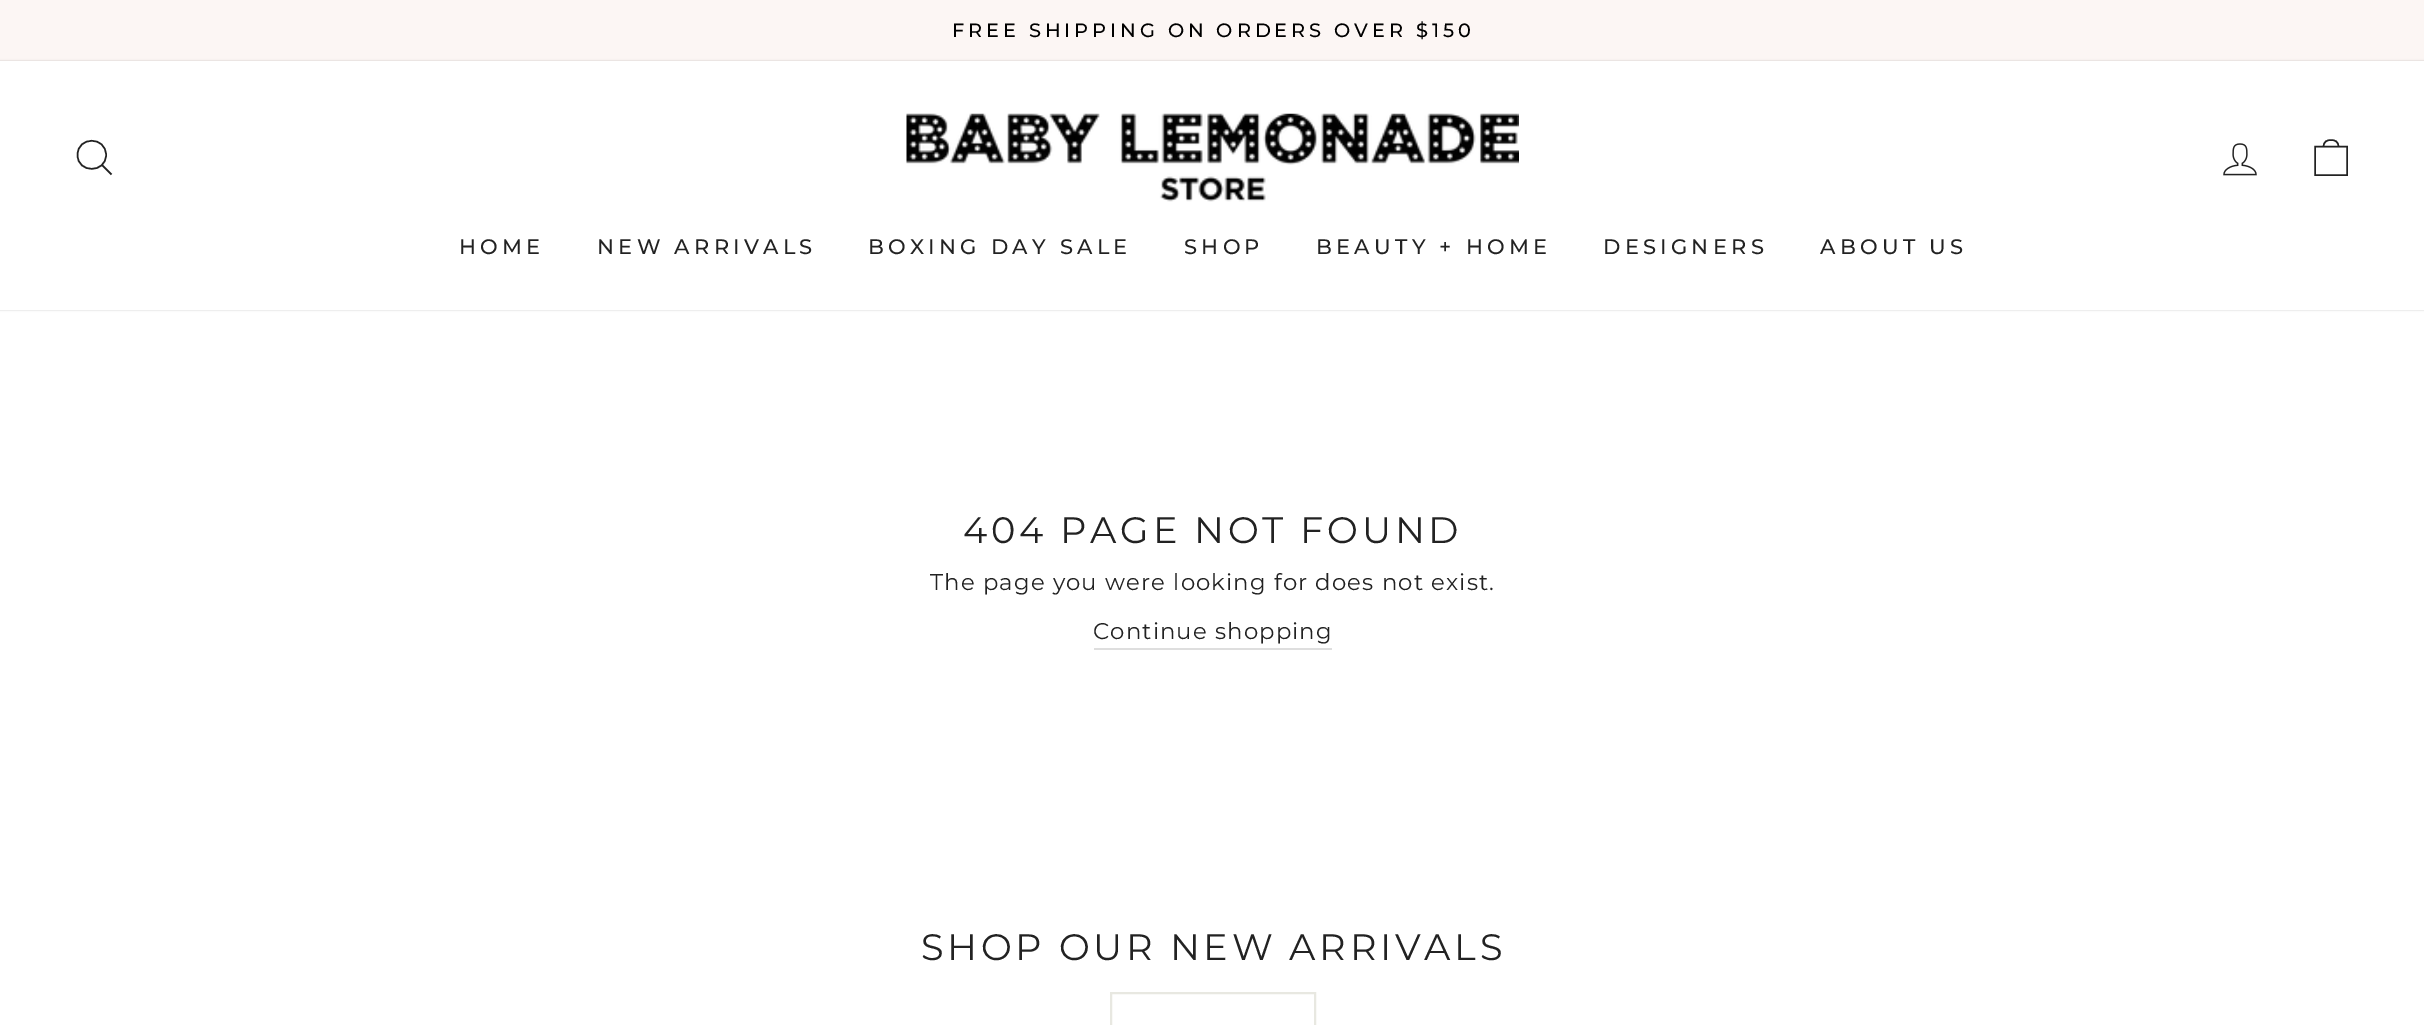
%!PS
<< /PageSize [2424 1025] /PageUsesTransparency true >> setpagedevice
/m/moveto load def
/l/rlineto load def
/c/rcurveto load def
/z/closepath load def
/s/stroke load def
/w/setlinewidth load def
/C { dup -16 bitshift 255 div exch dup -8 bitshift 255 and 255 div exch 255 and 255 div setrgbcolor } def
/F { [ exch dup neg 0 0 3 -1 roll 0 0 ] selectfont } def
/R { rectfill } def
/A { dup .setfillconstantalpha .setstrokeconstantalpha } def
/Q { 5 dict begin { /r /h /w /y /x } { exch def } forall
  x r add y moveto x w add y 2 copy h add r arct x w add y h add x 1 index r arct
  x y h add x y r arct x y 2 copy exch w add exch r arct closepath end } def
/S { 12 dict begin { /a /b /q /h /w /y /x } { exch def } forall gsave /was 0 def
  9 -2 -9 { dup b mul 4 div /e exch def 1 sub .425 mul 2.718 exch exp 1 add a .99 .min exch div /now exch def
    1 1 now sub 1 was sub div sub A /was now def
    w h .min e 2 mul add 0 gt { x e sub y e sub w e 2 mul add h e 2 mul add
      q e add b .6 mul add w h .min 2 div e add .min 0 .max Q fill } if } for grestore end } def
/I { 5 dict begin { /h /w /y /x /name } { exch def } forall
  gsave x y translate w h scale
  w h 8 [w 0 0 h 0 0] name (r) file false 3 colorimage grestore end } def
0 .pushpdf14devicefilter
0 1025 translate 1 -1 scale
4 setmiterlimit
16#FFFFFF C
0 0 2424 1025 R
16#FCF6F4 C
0 0 2424 61 R
/Montserrat-Medium 19.35 F
16#000000 C
952 37 m 3.9 0 (FREE SHIPPING ON ORDERS OVER $150) ashow
0 61 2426 249 0 1 .2 S
16#FFFFFF C
0 61 2424 249 R
16#222222 C
1.5 w
106 155 m 0 18.5 -28.5 18.5 -28.5 0 c 0 -19 28.5 -19 28.5 0 c z 111.5 174.5 m -9.5 -9.5 l s
(1.rgb) 906 113 613 89 I
(2.rgb) 2223 143 34 33 I
2315 146.5 m 32 0 l 0 28.5 l -32 0 l z 2323.5 147 m 0 -5.5 3.5 -7 7.5 -7 c 4 0 7.5 1.5 7.5 7 c s
/Montserrat-Medium 21 F
459 254 m 4.25 0 (HOME) ashow
597 254 m 4.25 0 (NEW ARRIVALS) ashow
868 254 m 4.25 0 (BOXING DAY SALE) ashow
1184 254 m 4.25 0 (SHOP) ashow
1316 254 m 4.25 0 (BEAUTY + HOME) ashow
1603 254 m 4.25 0 (DESIGNERS) ashow
1820 254 m 4.25 0 (ABOUT US) ashow
/Montserrat-Thin 36.75 F
963 543 m 3.7 0 (404 PAGE NOT FOUND) ashow
/Montserrat-Thin 22.75 F
930 590 m 1.15 0 (The page you were looking for does not exist.) ashow
16#DEDEDE C
1094 648 238 2 R
16#222222 C
1093 639 m 1.15 0 (Continue shopping) ashow
/Montserrat-Thin 36.75 F
921 960 m 3.7 0 (SHOP OUR NEW ARRIVALS) ashow
16#E8E8E1 C
2 w
1111 993 204 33 rectstroke
.poppdf14devicefilter showpage
